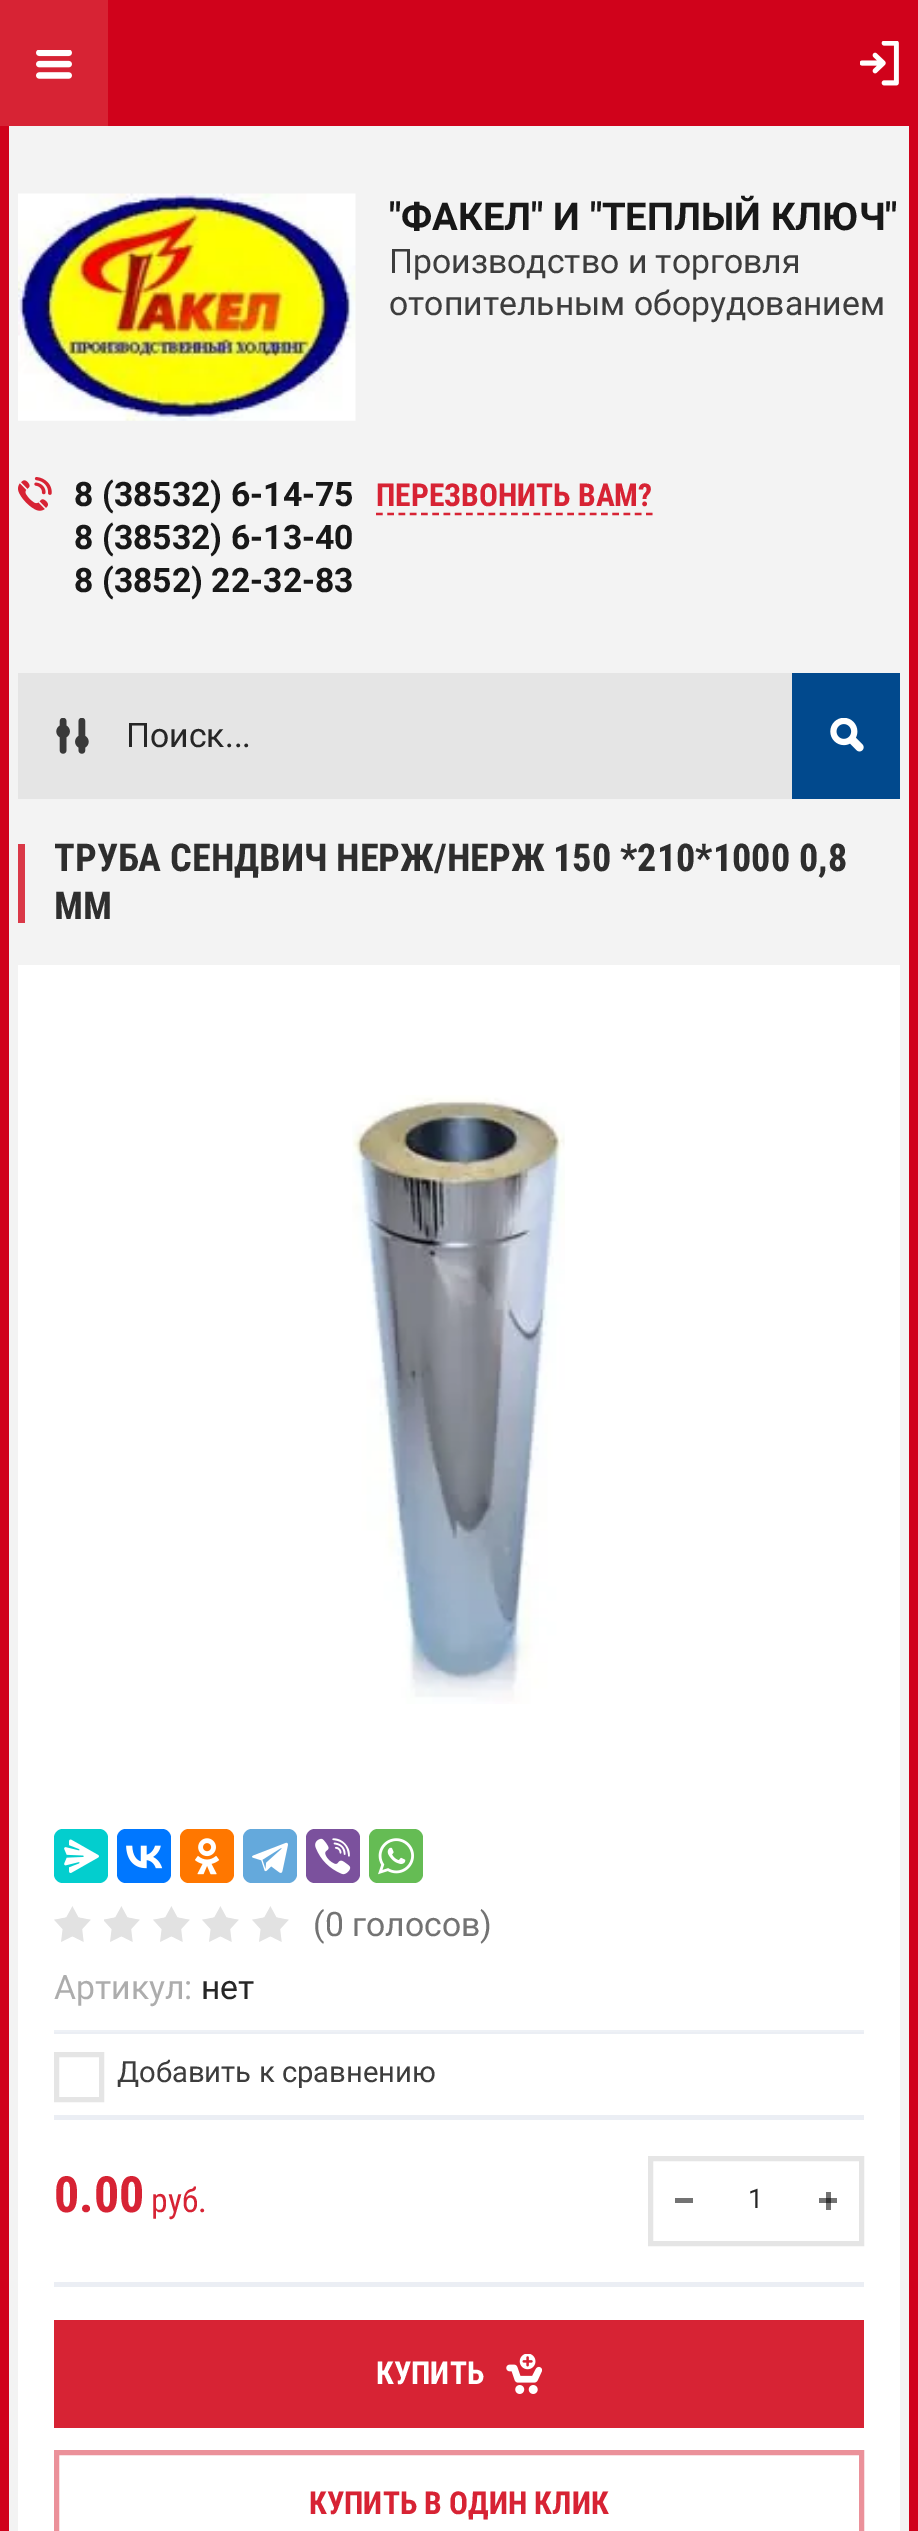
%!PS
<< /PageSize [918 2531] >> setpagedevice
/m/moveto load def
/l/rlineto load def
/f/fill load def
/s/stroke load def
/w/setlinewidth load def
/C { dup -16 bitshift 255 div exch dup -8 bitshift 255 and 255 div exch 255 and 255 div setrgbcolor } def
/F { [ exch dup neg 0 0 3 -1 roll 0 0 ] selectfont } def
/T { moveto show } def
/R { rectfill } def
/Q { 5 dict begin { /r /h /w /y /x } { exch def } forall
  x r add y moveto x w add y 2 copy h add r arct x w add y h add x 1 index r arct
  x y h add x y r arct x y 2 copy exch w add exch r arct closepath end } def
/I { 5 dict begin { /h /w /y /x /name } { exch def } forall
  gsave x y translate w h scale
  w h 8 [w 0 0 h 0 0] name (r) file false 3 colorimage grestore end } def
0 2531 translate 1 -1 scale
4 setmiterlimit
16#D0021B C
0 0 918 2531 R
16#D72334 C
0 0 108 126 R
(1.rgb) 36 50 36 29 I
(2.rgb) 860 41 39 45 I
16#F3F3F3 C
9 126 900 2405 R
(3.rgb) 18 193 338 228 I
/Roboto-Bold 38.25 F
16#181818 C
("ФАКЕЛ" И "ТЕПЛЫЙ КЛЮЧ") 389 230 T
/Roboto-Regular 33.75 F
16#3D3D3D C
(Производство и торговля) 389 273 T
(отопительным оборудованием) 389 315 T
(4.rgb) 18 477 34 34 I
/Roboto-Bold 33.75 F
16#181818 C
(8 \(38532\) 6-14-75) 74 506 T
(8 \(38532\) 6-13-40) 74 549 T
(8 \(3852\) 22-32-83) 74 592 T
/RobotoCondensed-Bold 31.5 F
16#D72334 C
(ПЕРЕЗВОНИТЬ ВАМ?) 376 506 T
2.2 w
[6.75 4.5] 0 setdash
376 514 m 276.5 0 l s
16#E5E5E5 C
18 673 774 126 R
(5.rgb) 56 718 33 36 I
/Roboto-Regular 33.75 F
16#262626 C
(Поиск...) 126 747 T
16#01498D C
792 673 108 126 R
(6.rgb) 830 718 34 34 I
16#DA3847 C
18 844 7 79 R
/RobotoCondensed-Bold 38.25 F
16#2E2E2E C
(ТРУБА СЕНДВИЧ НЕРЖ/НЕРЖ 150 *210*1000 0,8) 54 871 T
(ММ) 54 919 T
16#FFFFFF C
18 965 882 1566 R
16#737373 C
826 2192 5 18 R
(7.rgb) 352 1095 213 609 I
16#03CECE C
54 1829 54 54 9 Q f
(8.rgb) 64 1839 35 34 I
16#0077FF C
117 1829 54 54 9 Q f
(9.rgb) 126 1845 37 24 I
16#FF7700 C
180 1829 54 54 9 Q f
(10.rgb) 195 1838 25 37 I
16#64A9DC C
243 1829 54 54 9 Q f
(11.rgb) 252 1842 36 31 I
16#7B519D C
306 1829 54 54 9 Q f
(12.rgb) 315 1838 36 37 I
16#65BC54 C
369 1829 54 54 9 Q f
(13.rgb) 378 1838 36 37 I
(14.rgb) 54 1906 235 36 I
/Roboto-Regular 33.75 F
16#737373 C
(\(0 голосов\)) 313 1936 T
16#EEF1F6 C
54 2030 810 2 R
16#ADADAD C
(Артикул:) 54 1999 T
16#262626 C
(нет) 201 1999 T
16#EBEEF4 C
54 2032 810 2 R
16#E5E5E5 C
5 w
[] 0 setdash
56.5 2054.5 45 45 rectstroke
/Roboto-Regular 29.25 F
16#3D3D3D C
(Добавить к сравнению) 117 2082 T
16#EBEEF4 C
54 2115 810 5 R
54 2282 810 5 R
/RobotoCondensed-Bold 50 F
16#D72334 C
(0.00) 54 2212 T
/RobotoCondensed-Regular 33.75 F
(руб.) 151 2212 T
16#E5E5E5 C
650.5 2158.5 211 85 rectstroke
16#737373 C
675 2198 18 5 R
/Roboto-Regular 27 F
16#262626 C
(1) 748 2208 T
16#737373 C
819 2198 18 5 R
16#343434 C
826 2198 5 5 R
16#D72334 C
54 2320 810 108 R
(15.rgb) 506 2354 36 40 I
/RobotoCondensed-Bold 31.5 F
16#FFFFFF C
(КУПИТЬ) 376 2384 T
16#EB919A C
56.5 2452.5 805 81 rectstroke
16#D72334 C
(КУПИТЬ В ОДИН КЛИК) 309 2514 T
showpage
